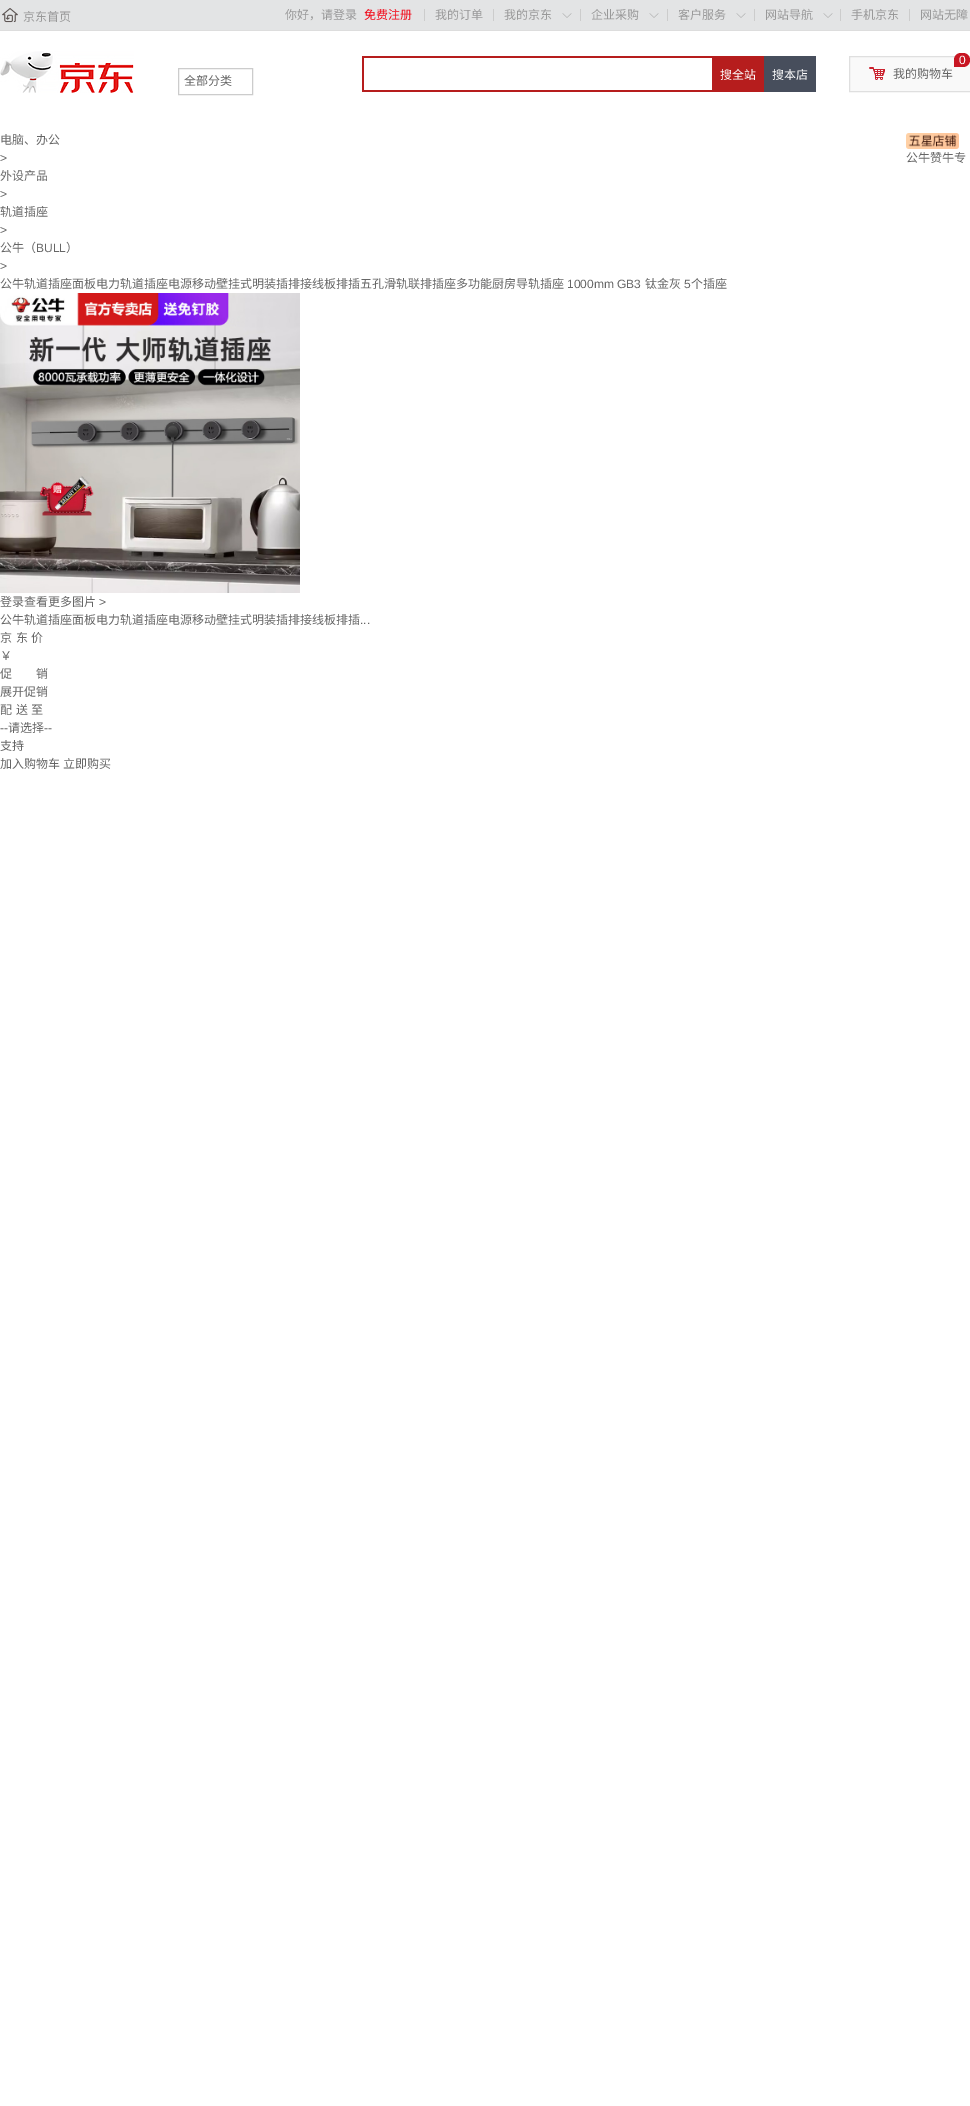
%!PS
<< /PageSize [970 2106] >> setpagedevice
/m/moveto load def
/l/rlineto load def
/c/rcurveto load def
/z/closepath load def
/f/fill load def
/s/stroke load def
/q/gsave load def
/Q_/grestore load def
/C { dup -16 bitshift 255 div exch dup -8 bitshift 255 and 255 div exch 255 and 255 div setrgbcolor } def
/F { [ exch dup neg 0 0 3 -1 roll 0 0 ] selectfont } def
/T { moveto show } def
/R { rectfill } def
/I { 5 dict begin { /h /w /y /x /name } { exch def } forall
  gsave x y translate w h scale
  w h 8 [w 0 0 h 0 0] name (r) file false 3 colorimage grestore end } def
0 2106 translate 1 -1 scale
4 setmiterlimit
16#FFFFFF C
0 0 970 2106 R
16#E3E4E5 C
0 0 970 30 R
16#DDDDDD C
0 30 970 1 R
(1.rgb) 2 8 16 15 I
/NotoSansCJKSC-Regular 12 F
16#999999 C
(京东首页) 23 21 T
(你好，请登录) 285 19 T
16#F30213 C
(免费注册) 364 19 T
16#CCCCCC C
424 9 1 12 R
16#999999 C
(我的订单) 435 19 T
16#CCCCCC C
493 9 1 12 R
16#999999 C
(我的京东) 504 19 T
(2.rgb) 562 13 10 5 I
16#CCCCCC C
580 9 1 12 R
16#999999 C
(企业采购) 591 19 T
(2.rgb) 649 13 10 5 I
16#CCCCCC C
667 9 1 12 R
16#999999 C
(客户服务) 678 19 T
(2.rgb) 736 13 10 5 I
16#CCCCCC C
754 9 1 12 R
16#999999 C
(网站导航) 765 19 T
(2.rgb) 823 13 10 5 I
16#CCCCCC C
840 9 1 12 R
16#999999 C
(手机京东) 851 19 T
16#CCCCCC C
909 9 1 12 R
16#999999 C
(网站无障) 920 19 T
(3.rgb) 0 51 134 42 I
16#CCCCCC C
178.5 68.5 74 26 rectstroke
16#666666 C
(全部分类) 184 85 T
16#B61D1D C
362 56 350 2 R
362 90 350 2 R
362 56 2 36 R
712 56 52 36 R
16#FFFFFF C
(搜全站) 720 79 T
16#474E5C C
764 56 52 36 R
16#FFFFFF C
(搜本店) 772 79 T
16#F9F9F9 C
849.5 56.5 m 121 0 l 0 35 l -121 0 l z q f Q_
16#DFDFDF C
s
16#C81623 C
961 53 m 2 0 l 4 0 7 3 7 7 c 0 4 -3 7 -7 7 c -9 0 l 0 -7 l 0 -4 3 -7 7 -7 c z f
/LiberationSans-Regular 12 F
16#FFFFFF C
(0) 959 64 T
(4.rgb) 869 67 16 13 I
/NotoSansCJKSC-Regular 12 F
16#666666 C
(我的购物车) 893 78 T
(电脑、办公) 0 144 T
/LiberationSans-Regular 12 F
(>) 0 162 T
/NotoSansCJKSC-Regular 12 F
(外设产品) 0 180 T
/LiberationSans-Regular 12 F
(>) 0 198 T
/NotoSansCJKSC-Regular 12 F
(轨道插座) 0 216 T
/LiberationSans-Regular 12 F
(>) 0 234 T
/NotoSansCJKSC-Regular 12 F
(公牛（) 0 252 T
/LiberationSans-Regular 12 F
(BULL) 36 252 T
/NotoSansCJKSC-Regular 12 F
(）) 66 252 T
/LiberationSans-Regular 12 F
(>) 0 270 T
/NotoSansCJKSC-Regular 12 F
(公牛轨道插座面板电力轨道插座电源移动壁挂式明装插排接线板排插五孔滑轨联排插座多功能厨房导轨插座) 0 288 T
/LiberationSans-Regular 12 F
(1000mm GB3) 567 288 T
/NotoSansCJKSC-Regular 12 F
(钛金灰) 645 288 T
/LiberationSans-Regular 12 F
(5) 684 288 T
/NotoSansCJKSC-Regular 12 F
(个插座) 691 288 T
(5.rgb) 906 133 53 16 I
(公牛赞牛专) 906 162 T
(6.rgb) 0 293 300 300 I
(登录查看更多图片) 0 606 T
/LiberationSans-Regular 12 F
(>) 99 606 T
/NotoSansCJKSC-Regular 12 F
(公牛轨道插座面板电力轨道插座电源移动壁挂式明装插排接线板排插) 0 624 T
/LiberationSans-Regular 12 F
(...) 360 624 T
/NotoSansCJKSC-Regular 12 F
0 642 m 1 0 32 (京 东 价) widthshow
(￥) 0 660 T
(促　　销) 0 678 T
(展开促销) 0 696 T
0 714 m 1 0 32 (配 送 至) widthshow
/LiberationSans-Regular 12 F
(--) 0 732 T
/NotoSansCJKSC-Regular 12 F
(请选择) 8 732 T
/LiberationSans-Regular 12 F
(--) 44 732 T
/NotoSansCJKSC-Regular 12 F
(支持) 0 750 T
(加入购物车) 0 768 T
(立即购买) 63 768 T
showpage
